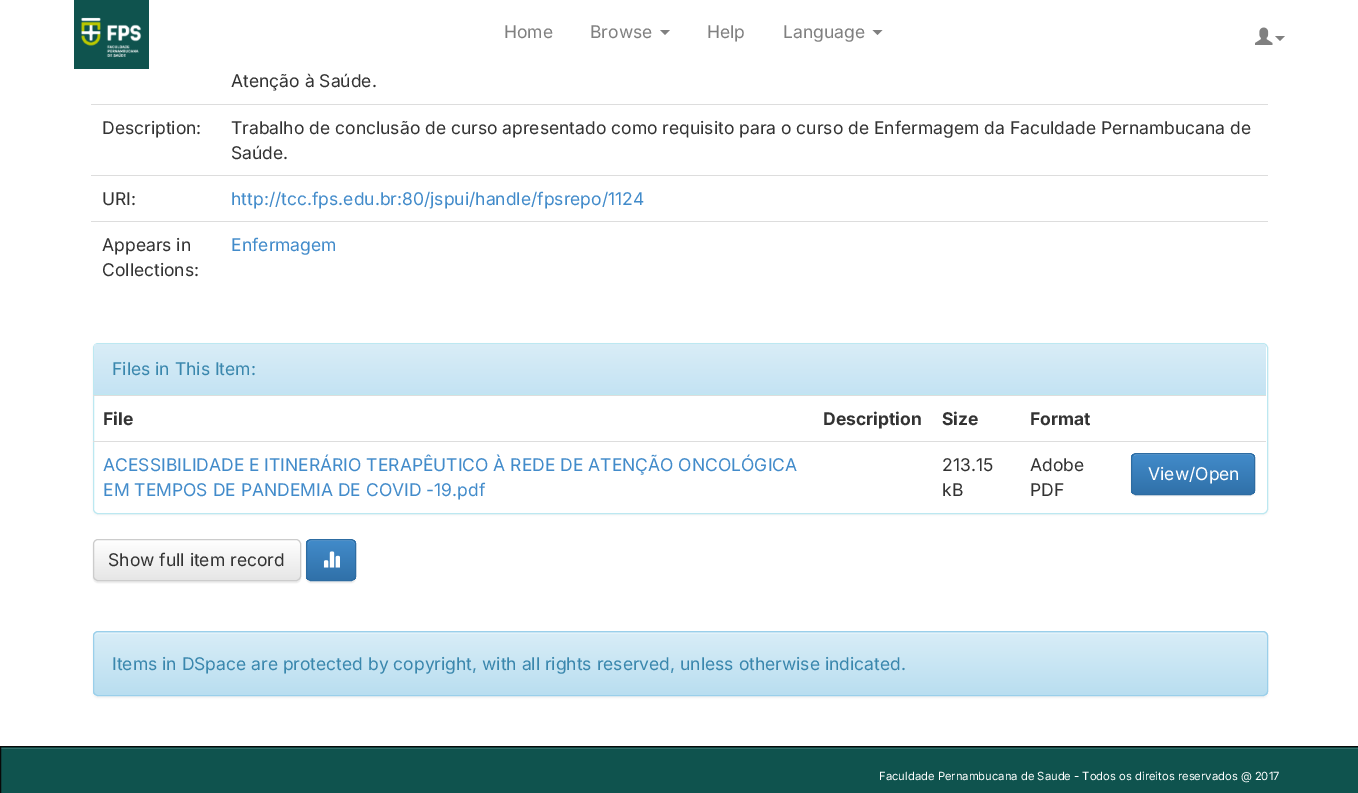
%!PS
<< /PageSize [1358 793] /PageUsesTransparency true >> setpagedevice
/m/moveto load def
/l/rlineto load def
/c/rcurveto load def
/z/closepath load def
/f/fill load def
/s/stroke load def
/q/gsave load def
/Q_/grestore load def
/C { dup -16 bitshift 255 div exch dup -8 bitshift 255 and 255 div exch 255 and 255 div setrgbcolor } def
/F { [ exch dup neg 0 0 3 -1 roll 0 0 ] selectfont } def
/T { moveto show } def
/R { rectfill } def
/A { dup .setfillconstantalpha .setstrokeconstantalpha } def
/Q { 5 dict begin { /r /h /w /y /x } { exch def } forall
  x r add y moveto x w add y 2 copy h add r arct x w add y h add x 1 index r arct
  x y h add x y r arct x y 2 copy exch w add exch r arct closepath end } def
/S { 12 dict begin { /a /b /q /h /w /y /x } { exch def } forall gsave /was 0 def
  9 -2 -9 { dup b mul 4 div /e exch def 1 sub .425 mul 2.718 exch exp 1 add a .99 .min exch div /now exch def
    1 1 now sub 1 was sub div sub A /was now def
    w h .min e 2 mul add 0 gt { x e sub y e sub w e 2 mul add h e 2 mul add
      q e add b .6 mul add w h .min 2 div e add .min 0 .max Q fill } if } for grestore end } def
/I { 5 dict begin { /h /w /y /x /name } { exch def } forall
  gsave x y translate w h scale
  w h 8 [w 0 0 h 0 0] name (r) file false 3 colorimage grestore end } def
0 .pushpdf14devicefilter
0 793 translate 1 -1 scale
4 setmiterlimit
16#FFFFFF C
0 0 1358 793 R
16#0F534E C
74 0 75 69 R
(1.rgb) 81 17 61 41 I
/Inter-Regular 17.5 F
16#808080 C
(Home) 504 38 T
(Browse) 590 38 T
660 30 m 10 0 l -5 5 l z f
(Help) 707 38 T
(Language) 783 38 T
872.5 30 m 10 0 l -5 5 l z f
(2.rgb) 1255 27 18 18 I
1275 36 m 10 0 l -5 5 l z f
16#333333 C
(Atenção à Saúde.) 231 87 T
(Description:) 102 134 T
16#DDDDDD C
91 104 1177 1 R
16#333333 C
(Trabalho de conclusão de curso apresentado como requisito para o curso de Enfermagem da Faculdade Pernambucana de) 231 134 T
(Saúde.) 231 159 T
(URI:) 102 205 T
16#DDDDDD C
91 175 1177 1 R
16#428BCA C
(http://tcc.fps.edu.br:80/jspui/handle/fpsrepo/1124) 231 205 T
16#333333 C
(Appears in) 102 251 T
(Collections:) 102 276 T
16#DDDDDD C
91 221 1177 1 R
16#428BCA C
(Enfermagem) 231 251 T
16#000000 C
93 344 1175 171 5 1 .05 S
16#FFFFFF C
93.5 343.5 1174 170 4.5 Q q f Q_
16#BCE8F1 C
s
q 98 344 m 1164 0 l 2 0 4 2 4 4 c 0 46 l -1172 0 l 0 -46 l 0 -2 2 -4 4 -4 c z clip newpath
<< /ShadingType 2 /ColorSpace /DeviceRGB /Coords [680 344 680 394] /Extend [true true] /Function << /FunctionType 2 /Domain [0 1] /C0 [.851 .929 .969] /C1 [.769 .89 .953] /N 1 >> >> shfill Q_
94 394 1172 1 R
16#3A87AD C
(Files in This Item:) 112 375 T
16#DDDDDD C
93 395 1173 1 R
/Inter-Bold 17.5 F
16#333333 C
(File) 103 425 T
(Description) 823 425 T
(Size) 942 425 T
(Format) 1030 425 T
/Inter-Regular 17.5 F
16#428BCA C
(ACESSIBILIDADE E ITINERÁRIO TERAPÊUTICO À REDE DE ATENÇÃO ONCOLÓGICA) 103 471 T
(EM TEMPOS DE PANDEMIA DE COVID -19.pdf) 103 496 T
16#333333 C
(213.15) 942 471 T
(kB) 942 496 T
(Adobe) 1030 471 T
(PDF) 1030 496 T
16#DDDDDD C
93 441 1173 1 R
16#000000 C
1131 454 124 42 5 .5 .07 S
q
1131 453 124 42 5 Q clip newpath
q 1131 454 m 124 0 l 0 40 l -124 0 l z clip newpath
<< /ShadingType 2 /ColorSpace /DeviceRGB /Coords [1193 454 1193 494] /Extend [true true] /Function << /FunctionType 2 /Domain [0 1] /C0 [.259 .545 .792] /C1 [.188 .443 .663] /N 1 >> >> shfill Q_
Q_
16#5E9CD2 C
1136 455 m 114 0 l 2 0 4 2 4 4 c 0 -1 l 0 -2 -2 -4 -4 -4 c -113 0 l -1 0 -3 1 -3 2 c z f
16#2D6CA2 C
1131.5 453.5 123 41 4.5 Q s
16#FFFFFF C
(View/Open) 1148 480 T
16#000000 C
93 540 208 43 5 .5 .07 S
q
93 539 208 42 5 Q clip newpath
q 93 540 m 208 0 l 0 40 l -208 0 l z clip newpath
<< /ShadingType 2 /ColorSpace /DeviceRGB /Coords [197 540 197 580] /Extend [true true] /Function << /FunctionType 2 /Domain [0 1] /C0 [1 1 1] /C1 [.902 .902 .902] /N 1 >> >> shfill Q_
Q_
16#CCCCCC C
93.5 539.5 207 41 4.5 Q s
16#333333 C
(Show full item record) 108 566 T
16#000000 C
306 540 50 43 5 .5 .07 S
q
306 539 50 42 5 Q clip newpath
q 306 540 m 50 0 l 0 40 l -50 0 l z clip newpath
<< /ShadingType 2 /ColorSpace /DeviceRGB /Coords [331 540 331 580] /Extend [true true] /Function << /FunctionType 2 /Domain [0 1] /C0 [.259 .545 .792] /C1 [.188 .443 .663] /N 1 >> >> shfill Q_
Q_
16#5E9CD2 C
311 541 m 40 0 l 2 0 4 2 4 4 c 0 -6 -6 -5 -11 -5 c -26 0 l -4 0 -10 -1 -10 5 c 0 -2 1 -4 3 -4 c z f
16#2D6CA2 C
306.5 539.5 49 41 4.5 Q s
(3.rgb) 323 551 17 17 I
16#000000 C
93 633 1175 65 5 1 .05 S
16#D9EDF7 C
93 631 1175 65 5 Q f
q
93 631 1175 65 5 Q clip newpath
q 93 633 m 1175 0 l 0 62 l -1175 0 l z clip newpath
<< /ShadingType 2 /ColorSpace /DeviceRGB /Coords [680 632 680 695] /Extend [true true] /Function << /FunctionType 2 /Domain [0 1] /C0 [.851 .929 .969] /C1 [.725 .871 .941] /N 1 >> >> shfill Q_
Q_
16#E2F2F9 C
98 634 m 1164 0 l 3 0 4 1 4 4 c 0 -3 -1 -5 -4 -5 c -1164 0 l -3 0 -4 2 -4 5 c 0 -3 1 -4 4 -4 c z f
16#9ACFEA C
93.5 631.5 1174 64 4.5 Q s
16#3A87AD C
(Items in DSpace are protected by copyright, with all rights reserved, unless otherwise indicated.) 112 670 T
16#0F534E C
1 747 1357 46 R
16#336D69 C
1 748 1357 1 R
16#080808 C
.5 746.5 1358 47 rectstroke
/Inter-Regular 11.25 F
16#FFFFFF C
(Faculdade Pernambucana de Saude - Todos os direitos reservados @ 2017) 879 780 T
.poppdf14devicefilter showpage
